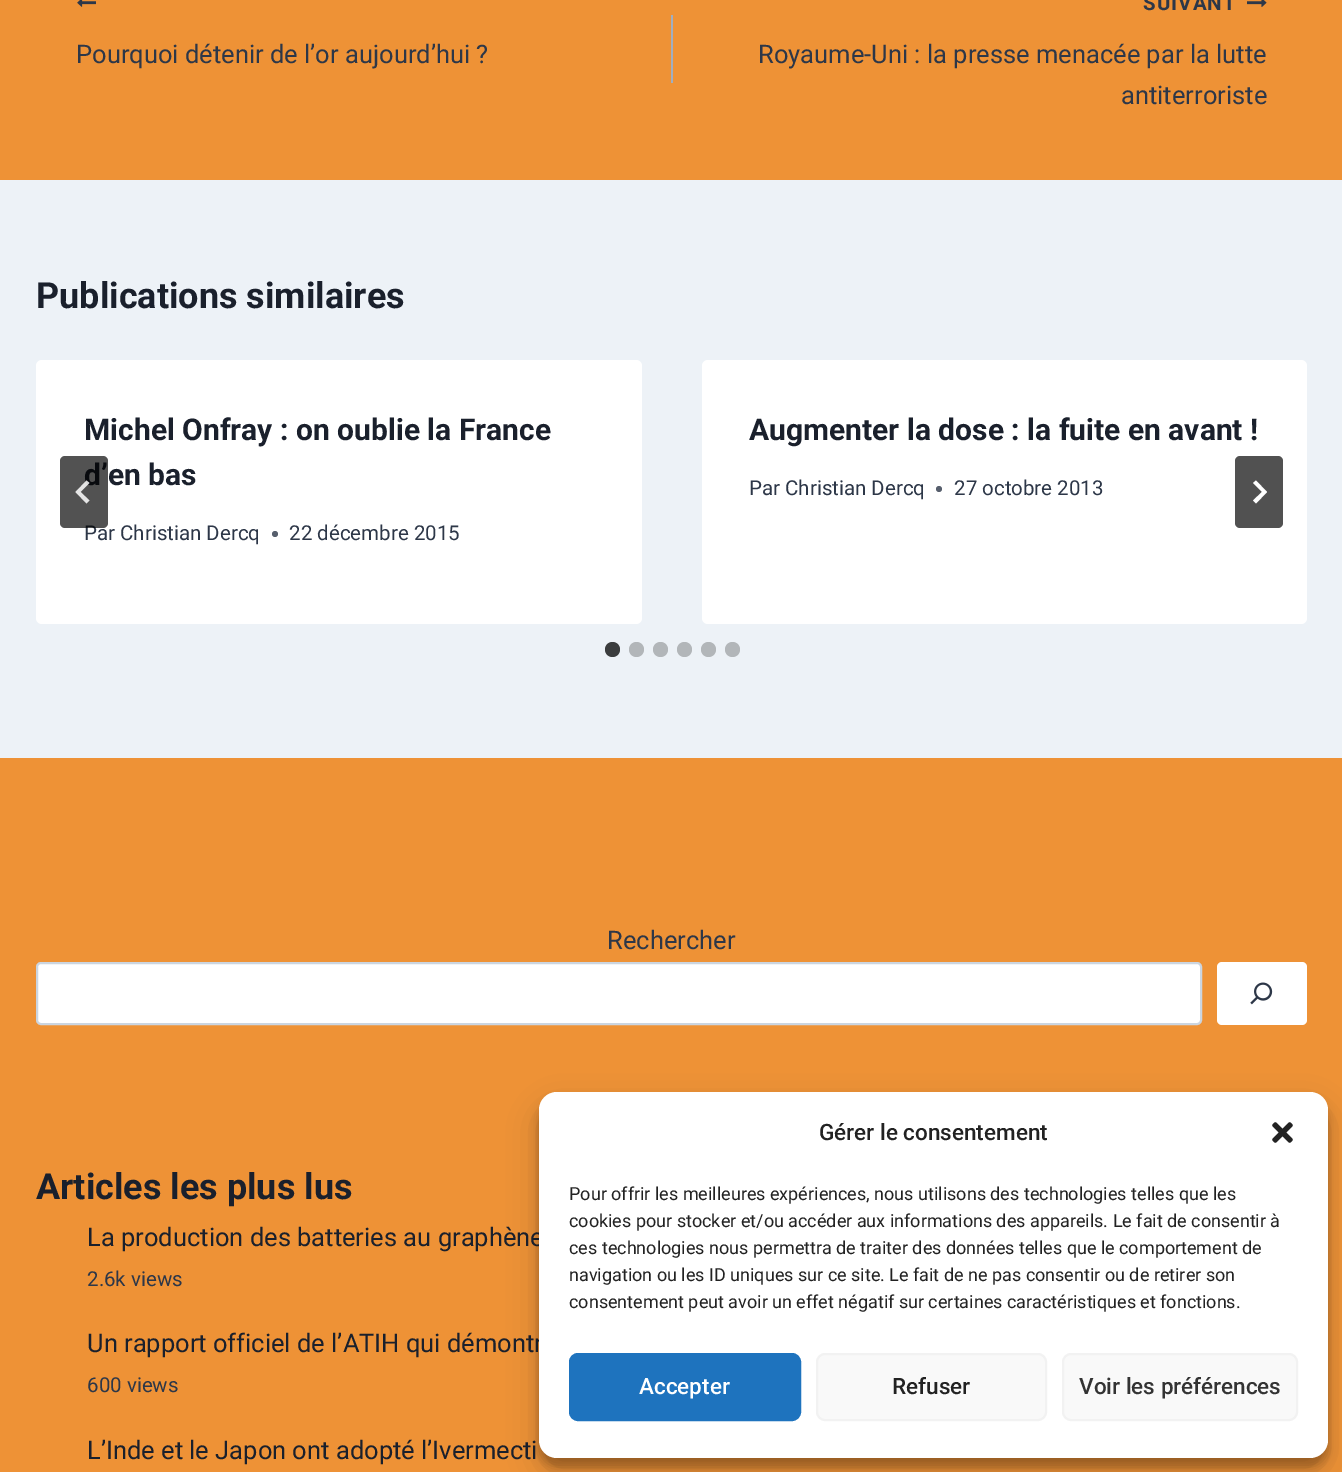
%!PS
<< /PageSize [1342 1472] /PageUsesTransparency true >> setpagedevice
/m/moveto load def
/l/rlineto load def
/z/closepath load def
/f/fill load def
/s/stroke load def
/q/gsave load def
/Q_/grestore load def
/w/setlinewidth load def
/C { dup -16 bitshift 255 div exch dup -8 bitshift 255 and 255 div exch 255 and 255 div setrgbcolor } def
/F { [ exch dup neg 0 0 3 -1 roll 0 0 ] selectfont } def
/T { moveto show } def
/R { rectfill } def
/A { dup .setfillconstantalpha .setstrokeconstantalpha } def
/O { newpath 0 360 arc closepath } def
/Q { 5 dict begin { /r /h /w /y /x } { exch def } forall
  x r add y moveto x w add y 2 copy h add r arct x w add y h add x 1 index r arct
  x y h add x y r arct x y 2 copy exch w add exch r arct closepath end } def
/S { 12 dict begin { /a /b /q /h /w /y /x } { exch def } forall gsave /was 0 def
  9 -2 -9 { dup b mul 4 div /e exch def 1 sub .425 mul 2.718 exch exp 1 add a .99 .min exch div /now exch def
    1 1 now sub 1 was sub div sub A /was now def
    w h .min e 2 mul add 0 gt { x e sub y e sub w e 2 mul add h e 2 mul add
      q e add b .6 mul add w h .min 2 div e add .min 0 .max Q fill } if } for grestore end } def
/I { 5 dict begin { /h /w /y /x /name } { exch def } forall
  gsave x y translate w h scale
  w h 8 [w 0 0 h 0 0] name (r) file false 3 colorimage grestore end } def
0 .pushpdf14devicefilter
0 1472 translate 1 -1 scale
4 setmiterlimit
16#EE9236 C
0 0 1342 1472 R
(1.rgb) 77 0 19 7 I
/Roboto-Regular 25.5 F
16#2D3748 C
(Pourquoi détenir de l’or aujourd’hui ?) 76 63 T
16#A0AEC0 C
671 15 2 68 R
/Roboto-Bold 20.5 F
16#2D3748 C
1143 10 m 1 0 (SUIVANT) ashow
(2.rgb) 1247 0 20 7 I
/Roboto-Regular 25.5 F
(Royaume-Uni : la presse menacée par la lutte) 758 63 T
(antiterroriste) 1121 104 T
16#EDF2F7 C
0 180 1342 578 R
/Roboto-Bold 36 F
16#1A202C C
(Publications similaires) 36 308 T
16#FFFFFF C
36 360 606 264 6 Q f
/Roboto-Bold 30 F
16#1A202C C
(Michel Onfray : on oublie la France) 84 440 T
(d’en bas) 84 485 T
/Roboto-Regular 20.5 F
16#2D3748 C
(Par Christian Dercq) 84 540 T
16#575F6D C
275 534 3 O f
16#2D3748 C
(22 décembre 2015) 289 540 T
16#FFFFFF C
702 360 605 264 6 Q f
/Roboto-Bold 30 F
16#1A202C C
(Augmenter la dose : la fuite en avant !) 749 440 T
/Roboto-Regular 20.5 F
16#2D3748 C
(Par Christian Dercq) 749 495 T
16#575F6D C
939 489 3 O f
16#2D3748 C
(27 octobre 2013) 954 495 T
0.68 A
16#000000 C
60 456 48 72 5 Q f
0.85 A
16#FFFFFF C
86.5 480.5 m 3 2.5 l -9 9 l 9 8.5 l -3 3 l -11 -11.5 l z f
1 A
16#515151 C
1235 456 48 72 5 Q f
16#FFFFFF C
1256 480.5 m -3 2.5 l 9 9 l -9 8.5 l 3 3 l 11 -11.5 l z f
16#3B3D3E C
612.5 649.5 7.5 O f
16#B2B6B9 C
636.5 649.5 7.5 O f
660.5 649.5 7.5 O f
684.5 649.5 7.5 O f
708.5 649.5 7.5 O f
732.5 649.5 7.5 O f
/Roboto-Regular 25.5 F
16#2D3748 C
(Rechercher) 607 949 T
16#FFFFFF C
37 963 1164 61 4 Q q f Q_
16#CBD5E0 C
2 w
s
16#FFFFFF C
1217 962 90 63 5 Q f
(3.rgb) 1250 982 23 23 I
/Roboto-Bold 36 F
16#1A202C C
(Articles les plus lus) 36 1199 T
/Roboto-Regular 25.5 F
(La production des batteries au graphène) 87 1246 T
/Roboto-Regular 20.5 F
16#2D3748 C
(2.6k views) 87 1286 T
/Roboto-Regular 25.5 F
16#1A202C C
(Un rapport officiel de l’ATIH qui démontr) 87 1352 T
/Roboto-Regular 20.5 F
16#2D3748 C
(600 views) 87 1392 T
/Roboto-Regular 25.5 F
16#1A202C C
(L’Inde et le Japon ont adopté l’Ivermecti) 87 1459 T
16#000000 C
539 1101 789 366 18 4.5 .23 S
539 1107 789 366 18 15 .19 S
16#FFFFFF C
539 1092 789 366 18 Q f
/Roboto-Medium 22.5 F
16#222222 C
(Gérer le consentement) 819 1140 T
(4.rgb) 1272 1122 21 21 I
/Roboto-Regular 18 F
(Pour offrir les meilleures expériences, nous utilisons des technologies telles que les) 569 1200 T
(cookies pour stocker et/ou accéder aux informations des appareils. Le fait de consentir à) 569 1227 T
(ces technologies nous permettra de traiter des données telles que le comportement de) 569 1254 T
(navigation ou les ID uniques sur ce site. Le fait de ne pas consentir ou de retirer son) 569 1281 T
(consentement peut avoir un effet négatif sur certaines caractéristiques et fonctions.) 569 1308 T
16#1E73BE C
570 1354 230 66 8 Q q f Q_
s
/Roboto-Medium 22.5 F
16#FFFFFF C
(Accepter) 639 1394 T
16#F9F9F9 C
817 1354 229 66 8 Q q f Q_
16#F2F2F2 C
s
16#222222 C
(Refuser) 892 1394 T
16#F9F9F9 C
1063 1354 234 66 8 Q q f Q_
16#F2F2F2 C
s
16#333333 C
(Voir les préférences) 1079 1394 T
.poppdf14devicefilter showpage
